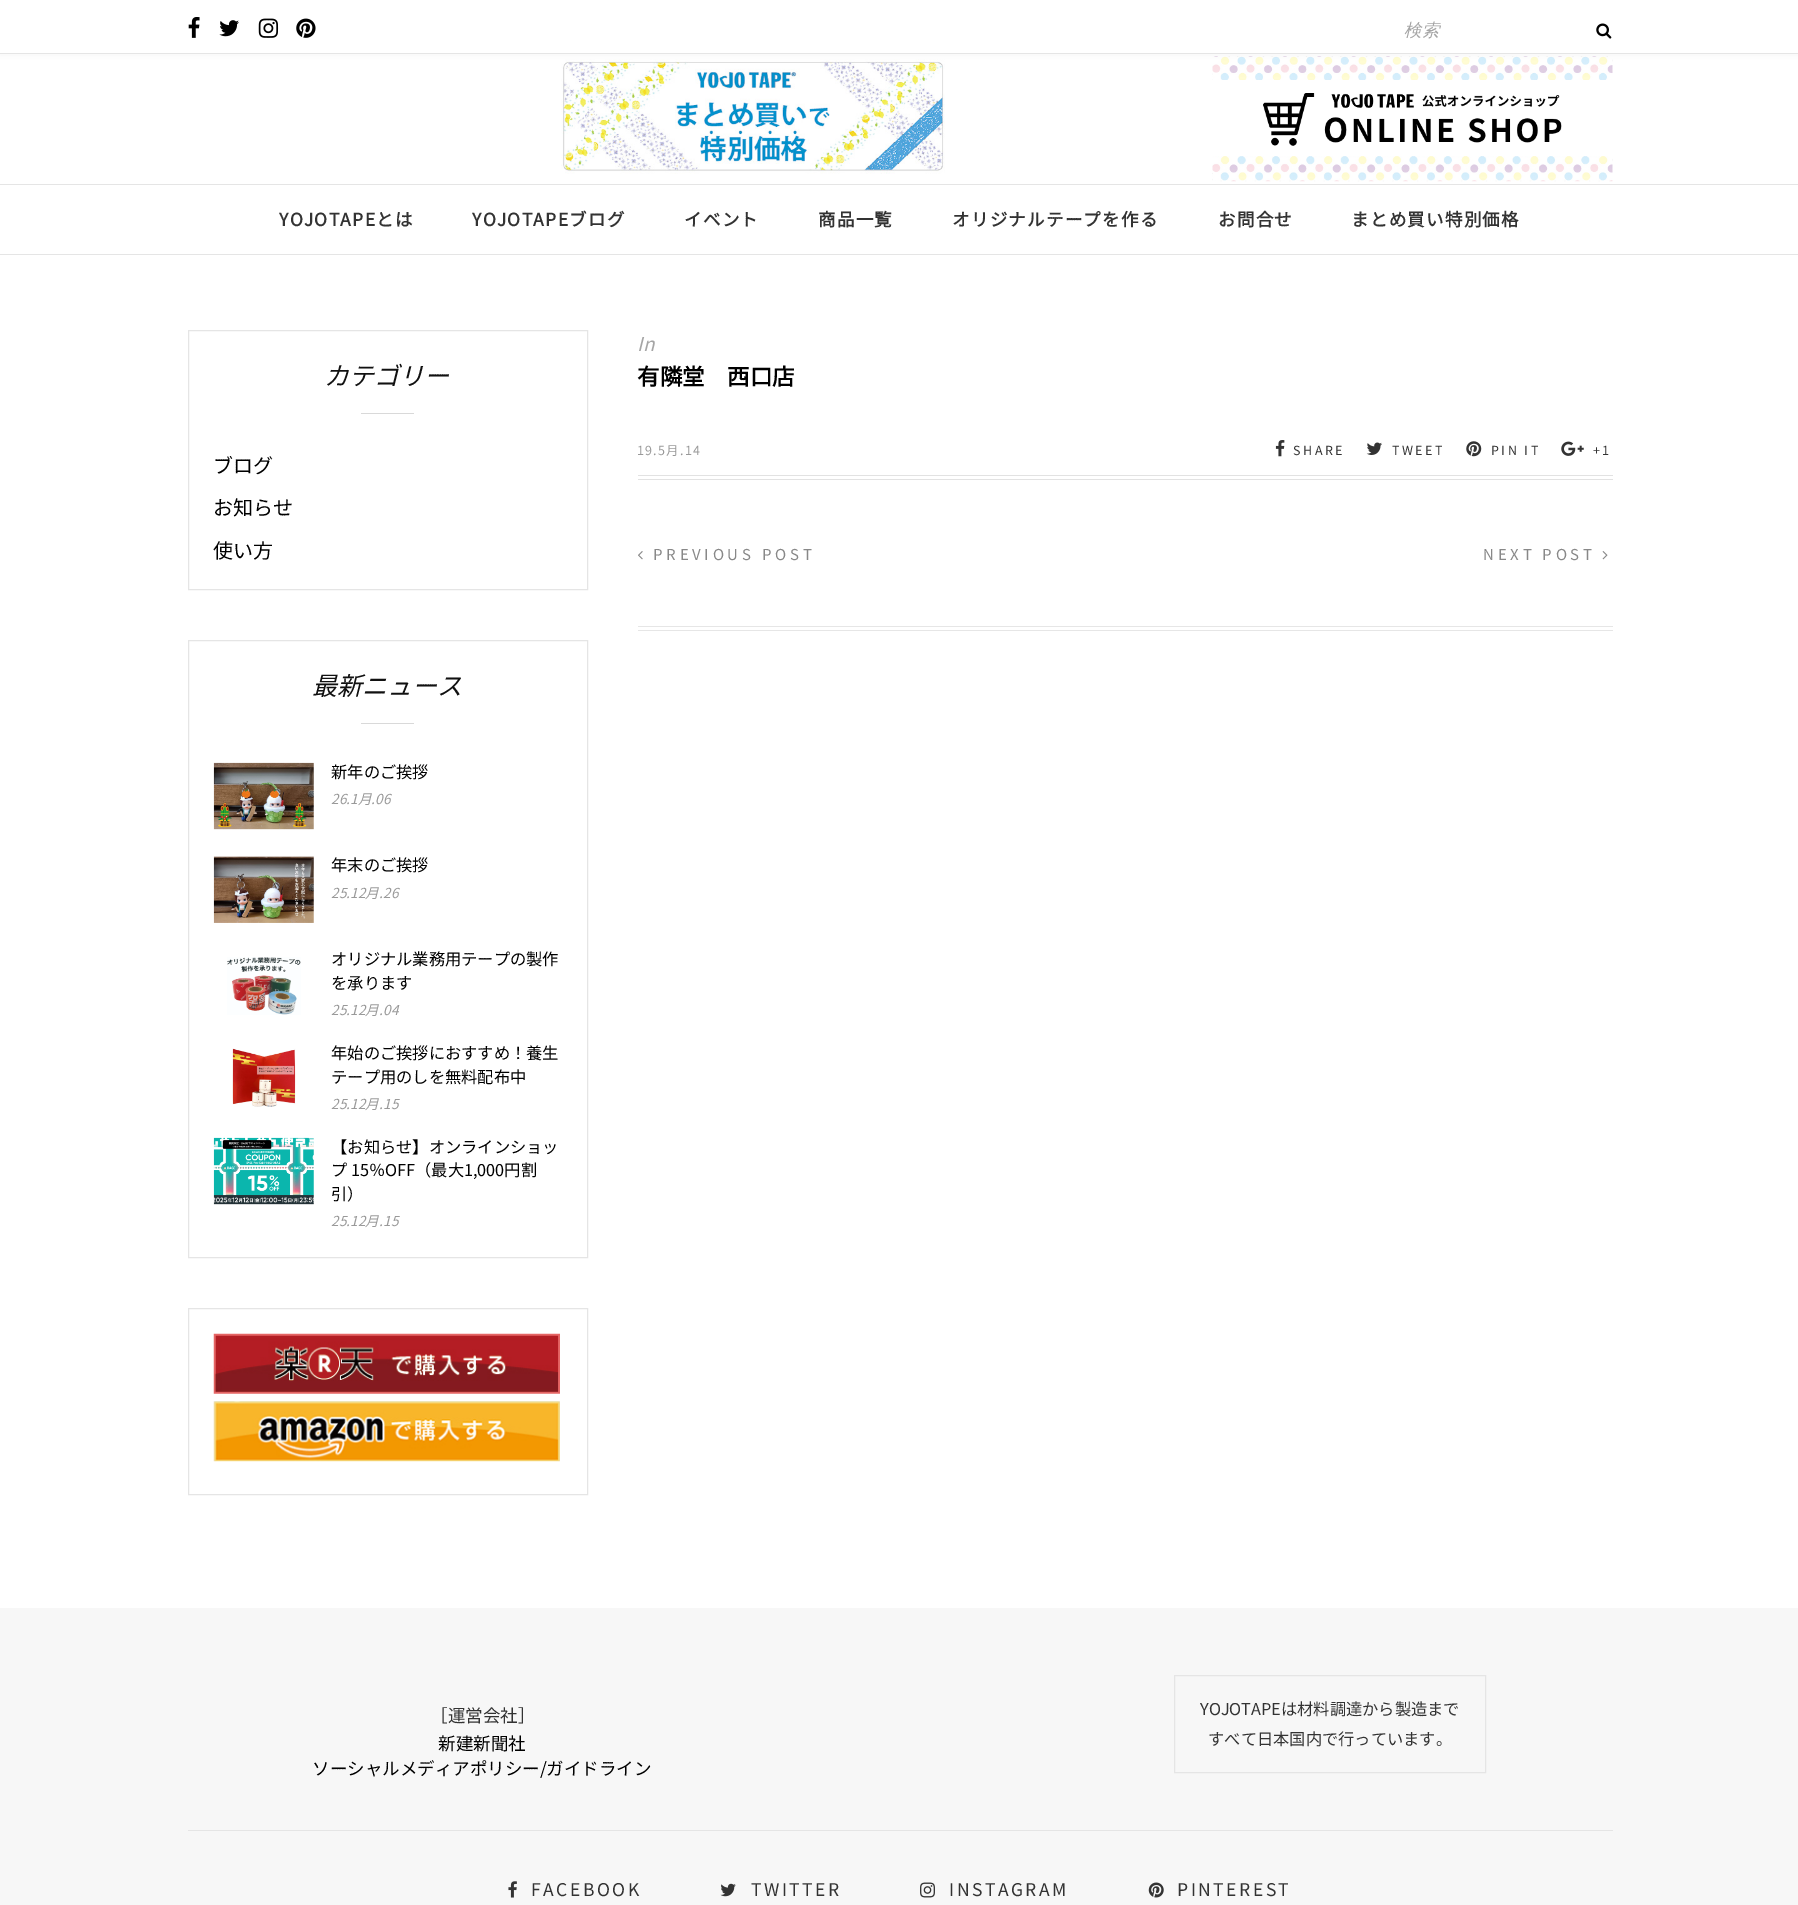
%!PS
<< /PageSize [1798 1905] /PageUsesTransparency true >> setpagedevice
/m/moveto load def
/C { dup -16 bitshift 255 div exch dup -8 bitshift 255 and 255 div exch 255 and 255 div setrgbcolor } def
/F { [ exch dup neg 0 0 3 -1 roll 0 0 ] selectfont } def
/T { moveto show } def
/R { rectfill } def
/A { dup .setfillconstantalpha .setstrokeconstantalpha } def
/Q { 5 dict begin { /r /h /w /y /x } { exch def } forall
  x r add y moveto x w add y 2 copy h add r arct x w add y h add x 1 index r arct
  x y h add x y r arct x y 2 copy exch w add exch r arct closepath end } def
/S { 12 dict begin { /a /b /q /h /w /y /x } { exch def } forall gsave /was 0 def
  9 -2 -9 { dup b mul 4 div /e exch def 1 sub .425 mul 2.718 exch exp 1 add a .99 .min exch div /now exch def
    1 1 now sub 1 was sub div sub A /was now def
    w h .min e 2 mul add 0 gt { x e sub y e sub w e 2 mul add h e 2 mul add
      q e add b .6 mul add w h .min 2 div e add .min 0 .max Q fill } if } for grestore end } def
/I { 5 dict begin { /h /w /y /x /name } { exch def } forall
  gsave x y translate w h scale
  w h 8 [w 0 0 h 0 0] name (r) file false 3 colorimage grestore end } def
0 .pushpdf14devicefilter
0 1905 translate 1 -1 scale
4 setmiterlimit
16#FFFFFF C
0 0 1798 1905 R
(6.rgb) 561 59 384 115 I
(7.rgb) 1212 56 401 126 I
16#BEBEBE C
0 1 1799 54 0 3 .16 S
16#FFFFFF C
0 0 1798 53 R
16#E5E5E5 C
0 53 1798 1 R
(1.rgb) 188 17 12 21 I
(2.rgb) 219 20 20 17 I
(3.rgb) 258 18 21 20 I
(4.rgb) 296 18 20 20 I
/WenQuanYiZenHei-MediumItalic 17.5 F
16#A5A5A5 C
(検索) 1404 36 T
(5.rgb) 1596 23 16 16 I
16#E5E5E5 C
0 184 1798 1 R
0 254 1798 1 R
/NotoSansJP-Bold 17.5 F
16#333333 C
279 226 m 1.25 0 (YOJOTAPEとは) ashow
472 226 m 1.25 0 (YOJOTAPEブログ) ashow
684 226 m 1.25 0 (イベント) ashow
818 226 m 1.25 0 (商品一覧) ashow
952 226 m 1.25 0 (オリジナルテープを作る) ashow
1218 226 m 1.25 0 (お問合せ) ashow
1351 226 m 1.25 0 (まとめ買い特別価格) ashow
16#E5E5E5 C
188.5 330.5 399 259 rectstroke
/NotoSansJP-ThinItalic 25 F
16#111111 C
(カテゴリー) 324 385 T
16#D9D9D9 C
361 413 53 1 R
/NotoSansJP-Thin 20 F
16#000000 C
(ブログ) 213 473 T
(お知らせ) 213 515 T
(使い方) 213 558 T
16#E5E5E5 C
188.5 640.5 399 617 rectstroke
/NotoSansJP-ThinItalic 25 F
16#111111 C
(最新ニュース) 312 695 T
16#D9D9D9 C
361 723 53 1 R
(8.rgb) 213 762 101 68 I
/NotoSansJP-Thin 16.25 F
16#000000 C
(新年のご挨拶) 331 778 T
/NotoSansJP-ThinItalic 13.75 F
16#999999 C
(26.1月.06) 331 804 T
(9.rgb) 213 856 101 67 I
/NotoSansJP-Thin 16.25 F
16#000000 C
(年末のご挨拶) 331 871 T
/NotoSansJP-ThinItalic 13.75 F
16#999999 C
(25.12月.26) 331 898 T
(10.rgb) 227 957 74 58 I
/NotoSansJP-Thin 16.25 F
16#000000 C
(オリジナル業務用テープの製作) 331 965 T
(を承ります) 331 989 T
/NotoSansJP-ThinItalic 13.75 F
16#999999 C
(25.12月.04) 331 1015 T
(11.rgb) 232 1048 64 59 I
/NotoSansJP-Thin 16.25 F
16#000000 C
(年始のご挨拶におすすめ！養生) 331 1059 T
(テープ用のしを無料配布中) 331 1083 T
/NotoSansJP-ThinItalic 13.75 F
16#999999 C
(25.12月.15) 331 1109 T
(12.rgb) 213 1137 101 68 I
/NotoSansJP-Thin 16.25 F
16#000000 C
(【お知らせ】オンラインショッ) 331 1153 T
(プ 15％OFF（最大1,000円割) 331 1176 T
(引）) 331 1200 T
/NotoSansJP-ThinItalic 13.75 F
16#999999 C
(25.12月.15) 331 1226 T
16#E5E5E5 C
188.5 1308.5 399 186 rectstroke
(13.rgb) 213 1333 347 61 I
(14.rgb) 213 1401 347 61 I
/NotoSansJP-ThinItalic 19 F
16#A5A5A5 C
(In) 637 351 T
/NotoSansJP-Bold 22.5 F
16#000000 C
(有隣堂　西口店) 637 385 T
16#E2E2E2 C
638 475 975 1 R
638 479 975 1 R
/NotoSansJP-Thin 12.5 F
16#999999 C
637 455 m 1.25 0 (19.5月.14) ashow
(15.rgb) 1275 440 10 17 I
16#333333 C
1293 455 m 2.5 0 (SHARE) ashow
(16.rgb) 1366 442 16 13 I
1392 455 m 2.5 0 (TWEET) ashow
(17.rgb) 1466 441 16 16 I
1491 455 m 2.5 0 (PIN IT) ashow
(18.rgb) 1561 441 23 15 I
1593 455 m 2.5 0 (+1) ashow
16#E6E6E6 C
638 626 975 1 R
638 630 975 1 R
(19.rgb) 638 551 5 9 I
/NotoSansJP-Thin 15 F
16#888888 C
653 560 m 3.75 0 (PREVIOUS POST) ashow
1483 560 m 3.75 0 (NEXT POST) ashow
(20.rgb) 1602 551 6 9 I
16#F7F7F7 C
0 1608 1798 297 R
/NotoSansJP-Thin 17.5 F
16#333333 C
(［運営会社］) 430 1722 T
16#000000 C
(新建新聞社) 438 1750 T
(ソーシャルメディアポリシー/ガイドライン) 312 1775 T
16#E5E5E5 C
1174.5 1675.5 311 97 rectstroke
/NotoSansJP-Thin 16.25 F
16#333333 C
(YOJOTAPEは材料調達から製造まで) 1200 1715 T
(すべて日本国内で行っています。) 1208 1745 T
16#E5E5E5 C
188 1830 1425 1 R
(21.rgb) 508 1881 9 17 I
/NotoSansJP-Thin 17.5 F
16#333333 C
531 1896 m 2.5 0 (FACEBOOK) ashow
(22.rgb) 720 1883 16 14 I
751 1896 m 2.5 0 (TWITTER) ashow
(23.rgb) 920 1882 15 16 I
949 1896 m 2.5 0 (INSTAGRAM) ashow
(24.rgb) 1148 1882 16 16 I
1177 1896 m 2.5 0 (PINTEREST) ashow
.poppdf14devicefilter showpage
